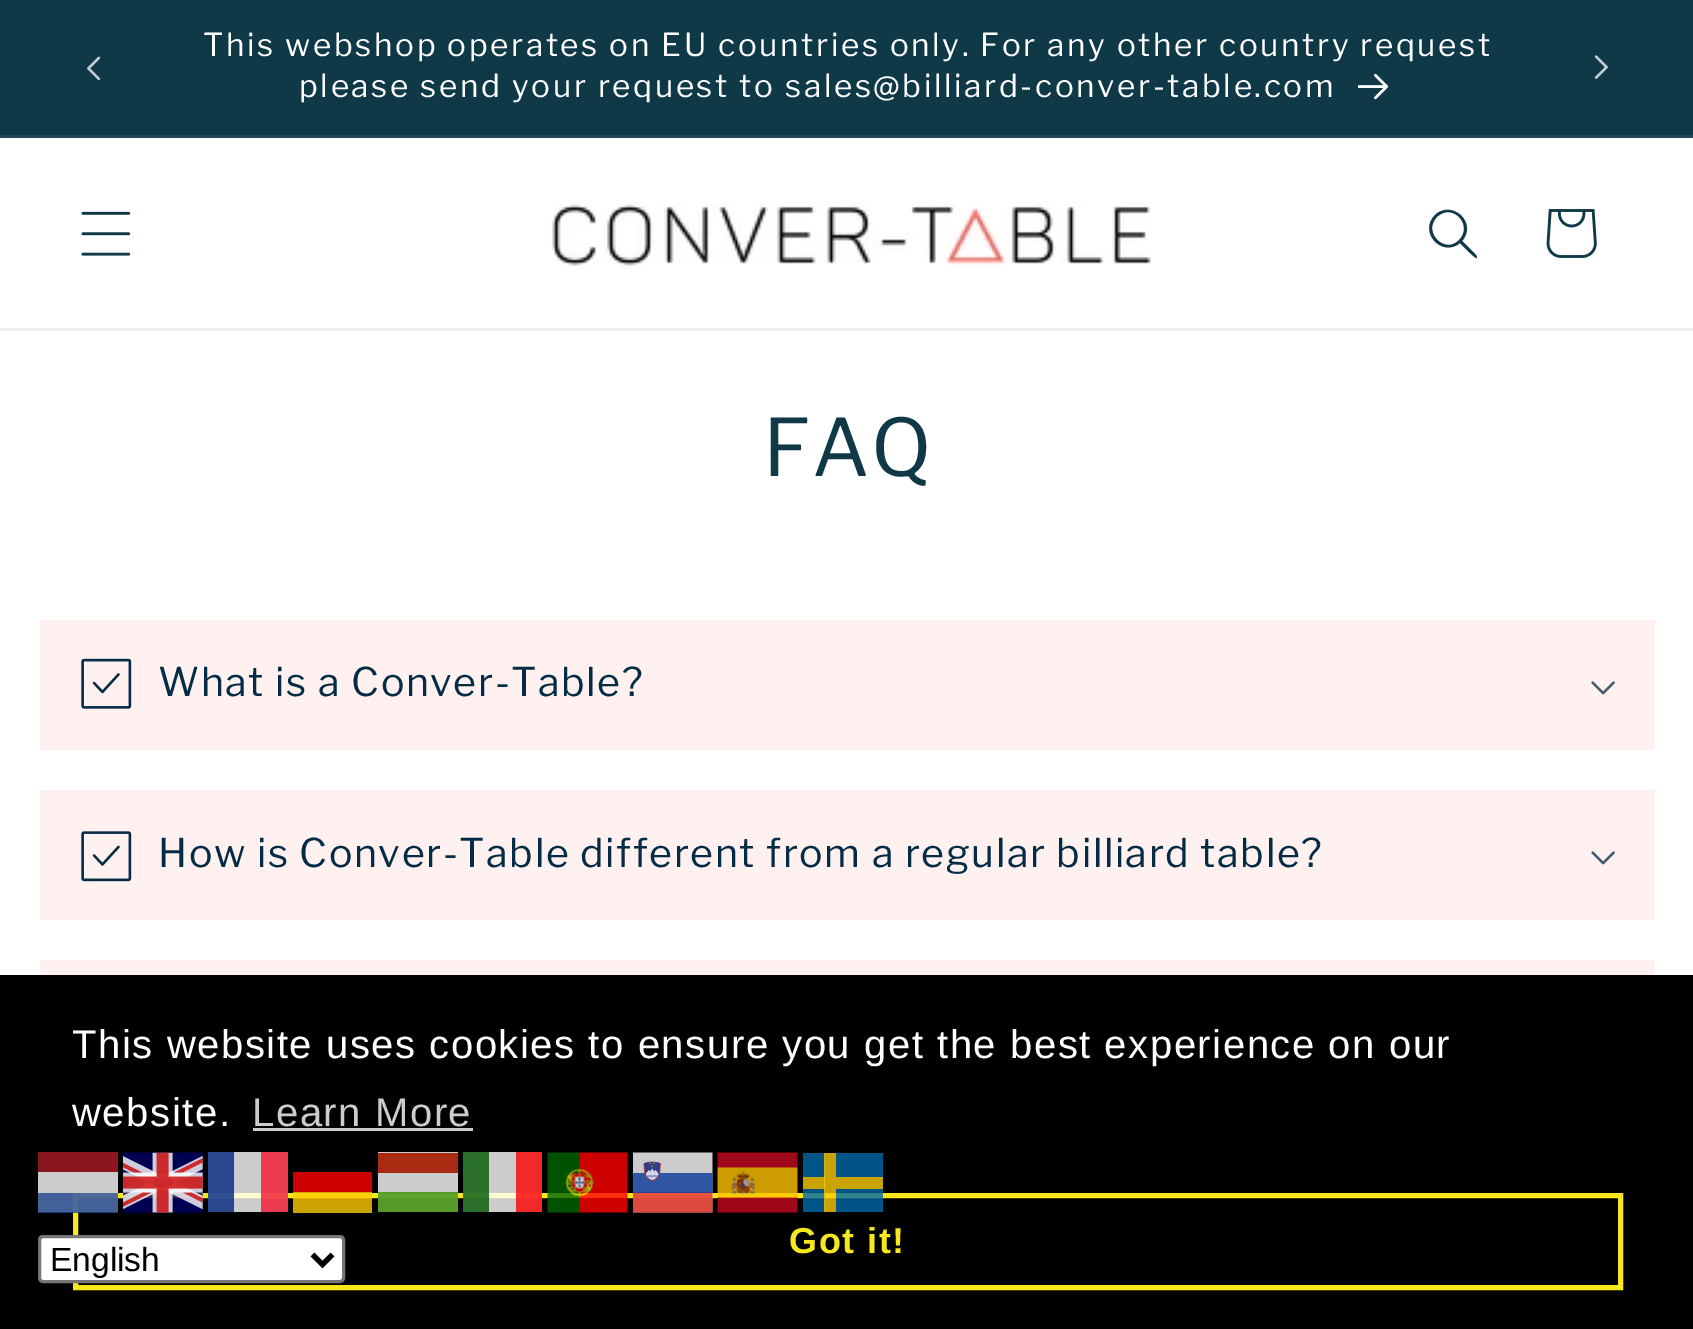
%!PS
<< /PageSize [1693 1329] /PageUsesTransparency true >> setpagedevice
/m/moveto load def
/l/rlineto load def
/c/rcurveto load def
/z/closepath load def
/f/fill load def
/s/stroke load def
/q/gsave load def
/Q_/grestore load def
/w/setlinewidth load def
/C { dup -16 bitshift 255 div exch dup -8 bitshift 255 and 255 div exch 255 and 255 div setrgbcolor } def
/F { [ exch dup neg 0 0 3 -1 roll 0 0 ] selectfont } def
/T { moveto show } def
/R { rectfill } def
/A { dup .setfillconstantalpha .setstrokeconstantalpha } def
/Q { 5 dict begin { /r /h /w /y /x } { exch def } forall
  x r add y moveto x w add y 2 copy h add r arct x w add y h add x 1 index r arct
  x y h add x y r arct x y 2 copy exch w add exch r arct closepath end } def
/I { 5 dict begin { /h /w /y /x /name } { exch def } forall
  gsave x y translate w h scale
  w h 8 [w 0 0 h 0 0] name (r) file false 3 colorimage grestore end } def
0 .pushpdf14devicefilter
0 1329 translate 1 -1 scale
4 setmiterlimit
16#FFFFFF C
0 0 1693 1329 R
16#103948 C
0 0 1693 135 R
16#234957 C
0 135 1693 3 R
(1.rgb) 87 56 14 24 I
/LibreFranklin-Regular 31.5 F
16#FFFFFF C
203 56 m 2.62 0 (This webshop operates on EU countries only. For any other country request) ashow
299 97 m 2.62 0 (please send your request to sales@billiard-conver-table.com) ashow
(2.rgb) 1358 73 31 27 I
(3.rgb) 1594 55 14 24 I
16#ECEFF0 C
0 328 1693 3 R
(4.rgb) 81 211 50 45 I
(5.rgb) 551 203 600 66 I
16#103948 C
1459 240 m -14 15 -37 -8 -22 -23 c 15 -15 37 8 22 23 c z 1460 243 m -18 15 -42 -11 -25 -28 c 17 -16 43 8 27 26 c 2 2 15 14 15 16 c 0 1 l -2 1 -15 -13 -17 -15 c z eofill
(6.rgb) 1546 209 51 49 I
/LibreFranklin-Regular 79 F
763 476 m 1.57 0 (FAQ) ashow
16#FFF1F0 C
40 620 1615 130 R
(7.rgb) 81 658 51 51 I
/LibreFranklin-Regular 39.4 F
16#052C46 C
158 696 m 1.57 0 (What is a Conver-Table?) ashow
(8.rgb) 1591 681 24 14 I
16#FFF1F0 C
40 790 1615 130 R
(9.rgb) 81 831 51 51 I
16#052C46 C
158 867 m 1.57 0 (How is Conver-Table different from a regular billiard table?) ashow
(8.rgb) 1591 851 24 14 I
16#FFF1F0 C
40 960 1615 15 R
16#000000 C
0 975 1693 354 R
/LiberationSans-Regular 40 F
16#FFFFFF C
72 1058 m 1.57 0 (This website uses cookies to ensure you get the best experience on our) ashow
72 1126 m 1.57 0 (website.) ashow
16#CCCCCC C
252 1126 m 1.57 0 (Learn More) ashow
253 1128 220 3 R
16#F8E71C C
5 w
75.5 1195.5 1545 92 rectstroke
/LiberationSans-Bold 36 F
789 1253 m 1.57 0 (Got it!) ashow
16#8B1620 C
38 1152 80 20 R
(10.rgb) 123 1152 80 61 I
0.8 A
16#FFFFFF C
208 1152 80 60 R
16#00267F C
208 1152 26 60 R
16#F31830 C
261 1152 27 60 R
16#FFFFFF C
378 1152 80 60 R
463 1152 79 60 R
38 1172 80 40 R
1 A
16#CC0000 C
293 1172 79 20 R
16#AA2A12 C
378 1153 80 20 R
0.8 A
16#005700 C
463 1152 26 60 R
16#FC0000 C
516 1152 26 60 R
1 A
(11.rgb) 547 1152 81 61 I
(12.rgb) 633 1152 80 61 I
(13.rgb) 717 1152 81 61 I
0.8 A
16#006AA7 C
803 1177 m 0 -24 l 22 0 l 0 24 l z 803 1212 m 0 -24 l 22 0 l 0 24 l z eofill
1 A
16#CBA300 C
803 1177 22 12 R
0.8 A
16#FECC00 C
824 1153 12 59 R
1 A
16#CBA300 C
836 1177 47 12 R
0.8 A
16#006AA7 C
836 1189 m 47 0 l 0 23 l -47 0 l z 836 1153 m 47 0 l 0 24 l -47 0 l z eofill
16#21468B C
38 1193 80 20 R
16#FFCC00 C
293 1192 79 21 R
16#388D00 C
378 1192 80 20 R
1 A
16#FFFFFF C
39.5 1236.5 304 45 3.5 Q q f Q_
16#767676 C
3 w
s
16#000000 C
5 w
312.5 1254.5 m 10 10 l 10 -10 l s
/LiberationSans-Regular 33.5 F
(English) 50 1271 T
.poppdf14devicefilter showpage
